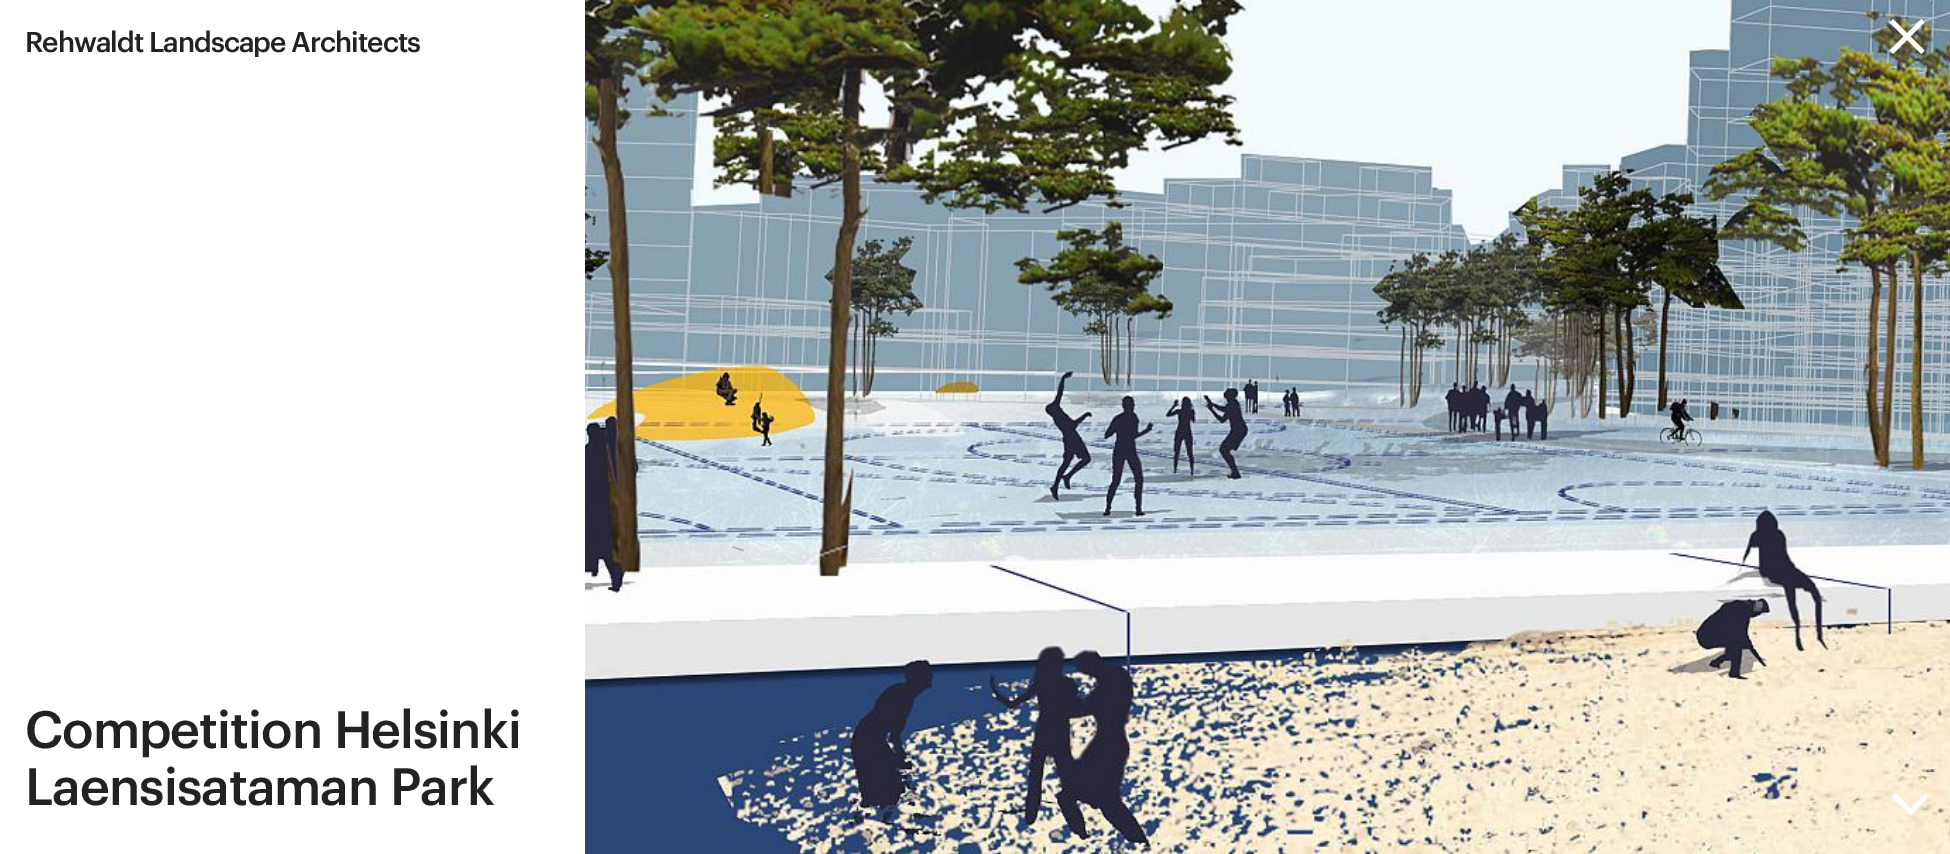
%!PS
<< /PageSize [1950 854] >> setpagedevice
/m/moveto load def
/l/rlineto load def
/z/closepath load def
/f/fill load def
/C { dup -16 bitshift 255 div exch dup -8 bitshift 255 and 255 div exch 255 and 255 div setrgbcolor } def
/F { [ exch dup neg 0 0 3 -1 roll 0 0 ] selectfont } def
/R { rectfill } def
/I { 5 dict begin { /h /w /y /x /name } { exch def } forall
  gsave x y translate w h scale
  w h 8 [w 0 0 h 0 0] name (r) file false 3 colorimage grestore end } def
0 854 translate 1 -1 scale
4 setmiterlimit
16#FFFFFF C
0 0 1950 854 R
/Graphik-Medium 28.1 F
16#222222 C
25 52 m -1 0 (Rehwaldt Landscape Architects) ashow
(1.rgb) 585 0 1365 854 I
16#FFFFFF C
1889.5 50.5 m 32 -31.5 l 3 3.5 l -31.5 31.5 l z f
1893 19 m 31.5 31.5 l -3 3.5 l -32 -31.5 l z f
/Graphik-Medium 51.5 F
16#222222 C
25 748 m -1 0 (Competition Helsinki) ashow
25 805 m -1 0 (Laensisataman Park) ashow
16#FFFFFF C
1892 796.5 m 3.5 -3.5 l 15 16 l 15.5 -16 l 3 3.5 l -18.5 19 l f
showpage
